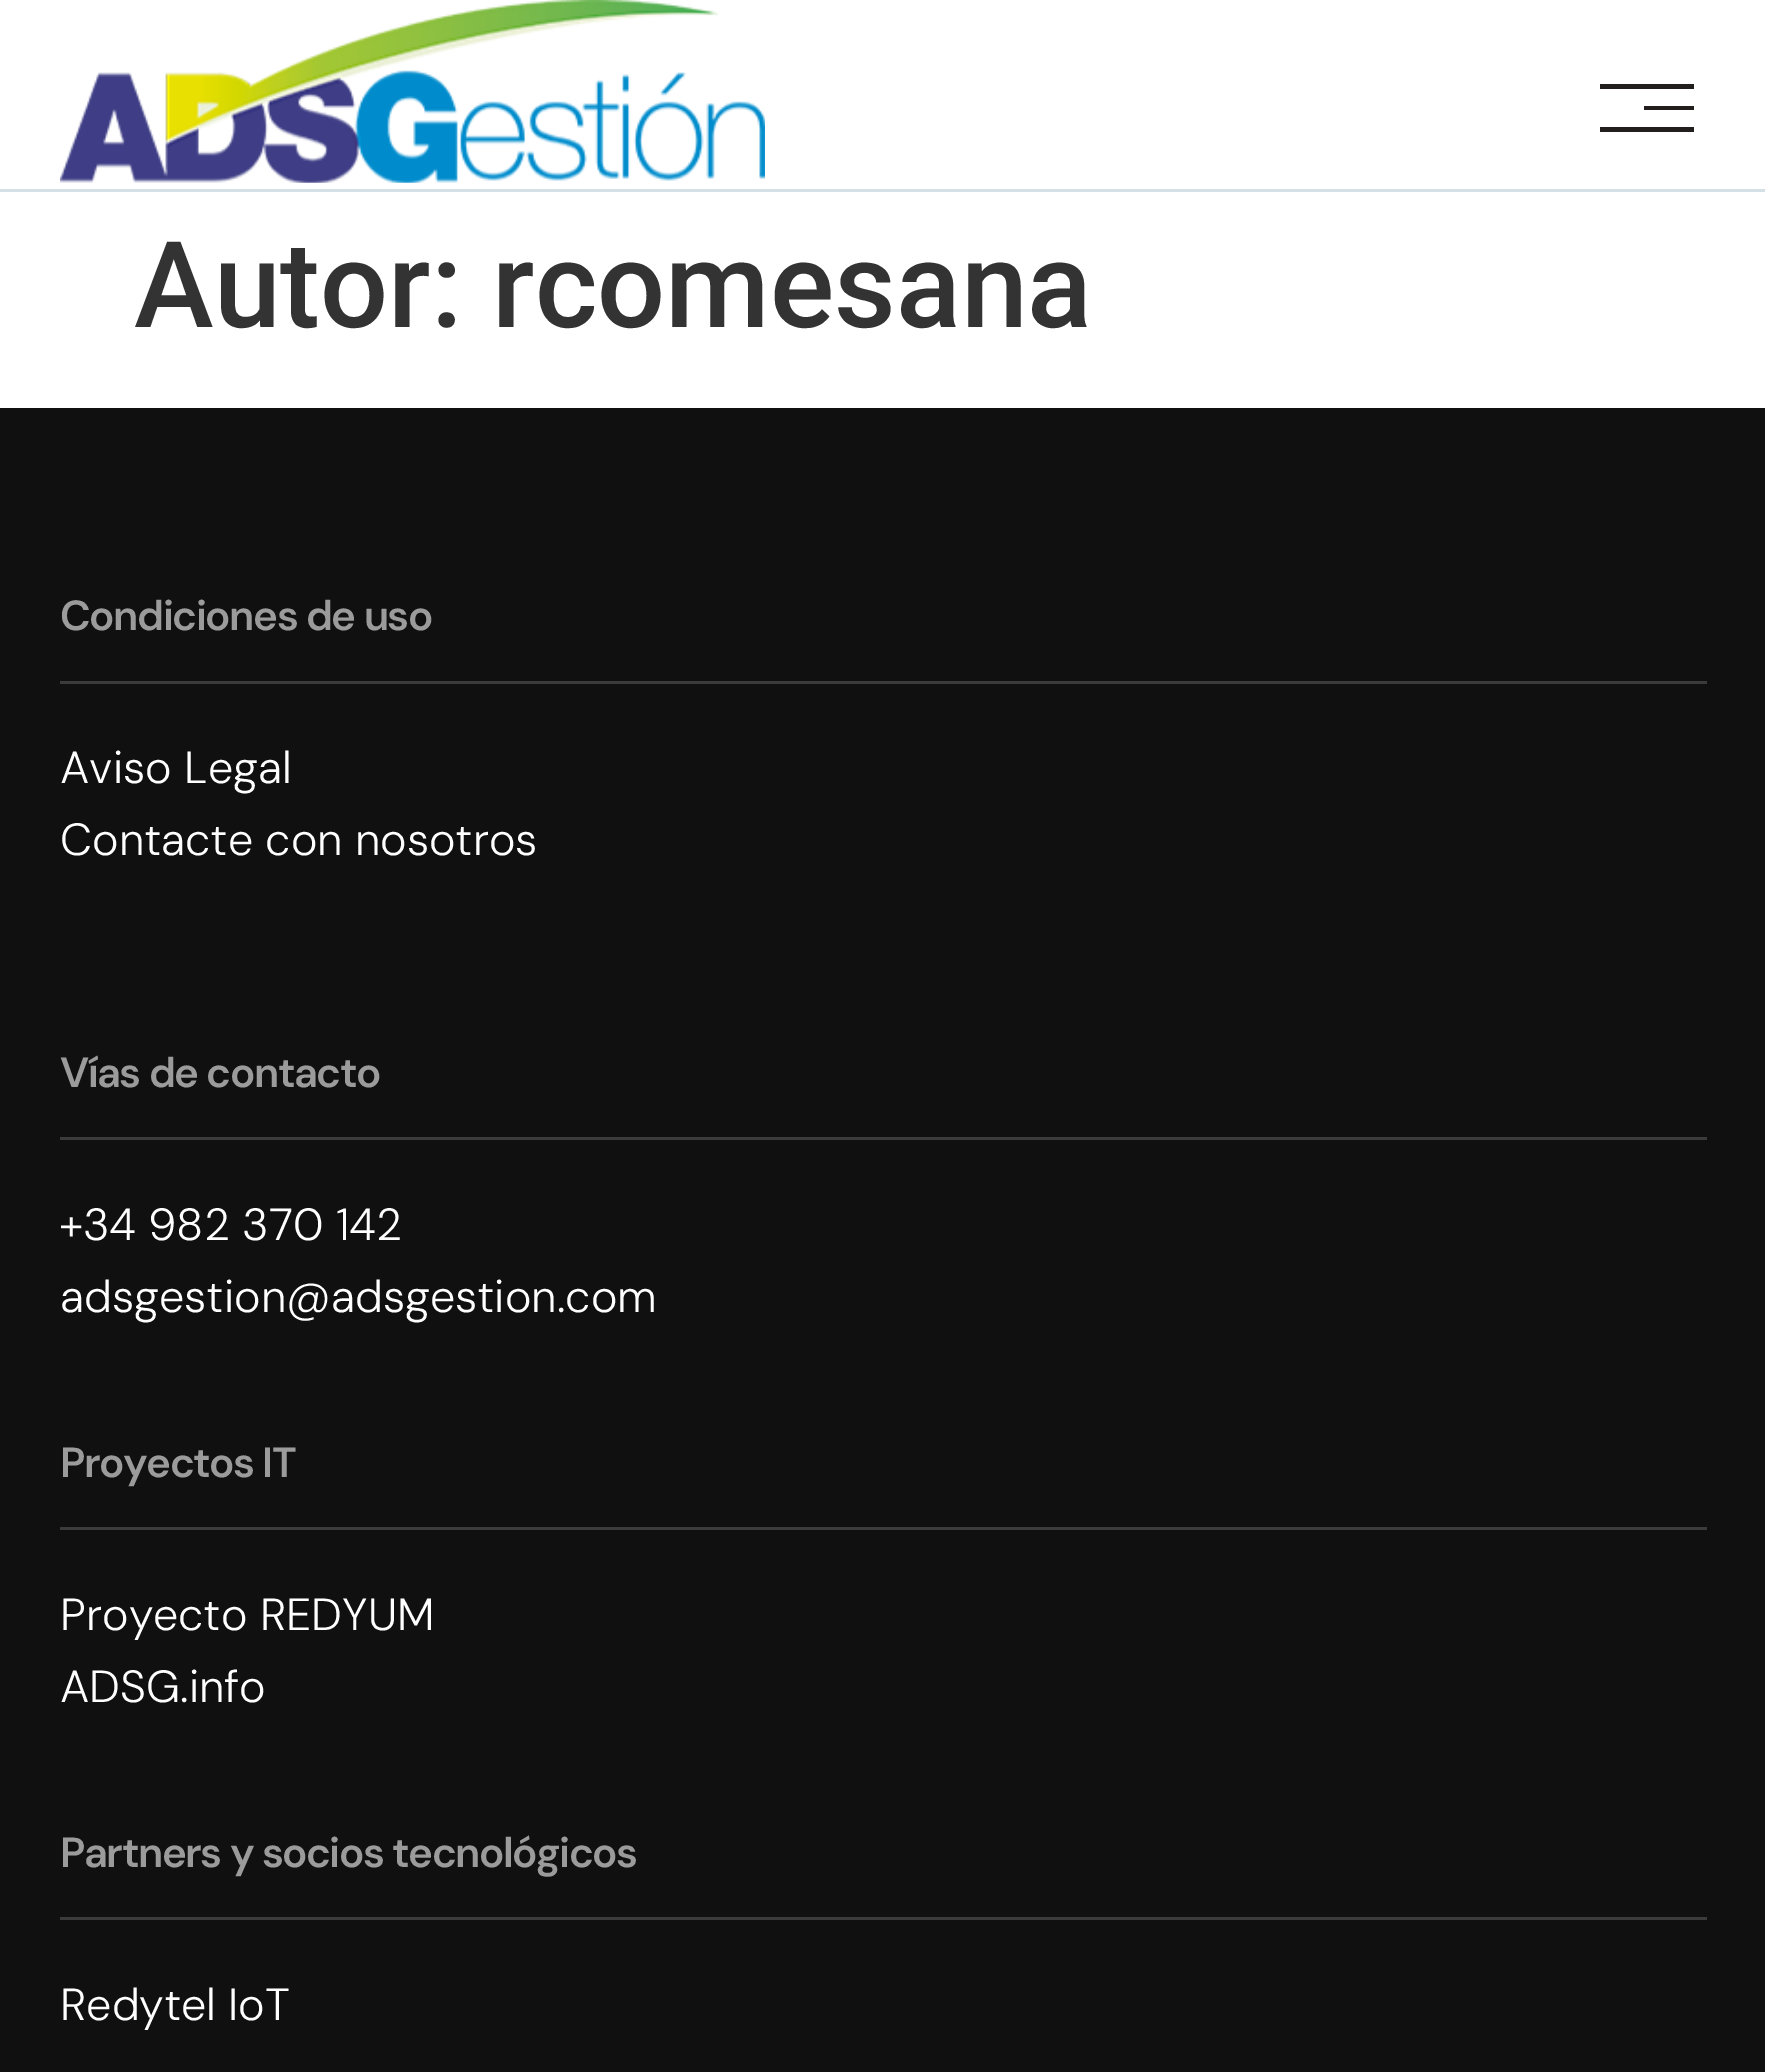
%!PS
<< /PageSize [1765 2072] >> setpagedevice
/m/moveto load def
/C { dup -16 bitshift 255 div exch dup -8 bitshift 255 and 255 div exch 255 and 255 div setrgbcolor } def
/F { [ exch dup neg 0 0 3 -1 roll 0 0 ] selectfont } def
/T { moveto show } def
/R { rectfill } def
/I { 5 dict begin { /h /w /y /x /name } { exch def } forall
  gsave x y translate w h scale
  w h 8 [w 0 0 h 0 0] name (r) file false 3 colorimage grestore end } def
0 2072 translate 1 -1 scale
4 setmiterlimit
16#FFFFFF C
0 0 1765 2072 R
16#D4E0E6 C
0 189 1765 3 R
(1.rgb) 60 0 705 183 I
16#221E1E C
1600 84 94 5 R
1644 106 50 4 R
1600 127 94 5 R
/Roboto-Medium 120 F
16#333333 C
(Autor: rcomesana) 134 327 T
16#101010 C
0 408 1765 1664 R
/DMSans-SemiBold 42 F
16#9C9B9B C
60 630 m -1.5 0 (Condiciones de uso) ashow
16#3B3B3B C
60 681 1647 3 R
/DMSans-Light 45 F
16#FFFFFF C
(Aviso Legal) 60 783 T
(Contacte con nosotros) 60 855 T
/DMSans-SemiBold 42 F
16#9C9B9B C
60 1087 m -1.5 0 (Vías de contacto) ashow
16#3B3B3B C
60 1137 1647 3 R
/DMSans-Light 45 F
16#FFFFFF C
(+34 982 370 142) 60 1240 T
(adsgestion@adsgestion.com) 60 1312 T
/DMSans-SemiBold 42 F
16#9C9B9B C
60 1477 m -1.5 0 (Proyectos IT) ashow
16#3B3B3B C
60 1527 1647 3 R
/DMSans-Light 45 F
16#FFFFFF C
(Proyecto REDYUM) 60 1630 T
(ADSG.info) 60 1702 T
/DMSans-SemiBold 42 F
16#9C9B9B C
60 1867 m -1.5 0 (Partners y socios tecnológicos) ashow
16#3B3B3B C
60 1917 1647 3 R
/DMSans-Light 45 F
16#FFFFFF C
(Redytel IoT) 60 2020 T
showpage
